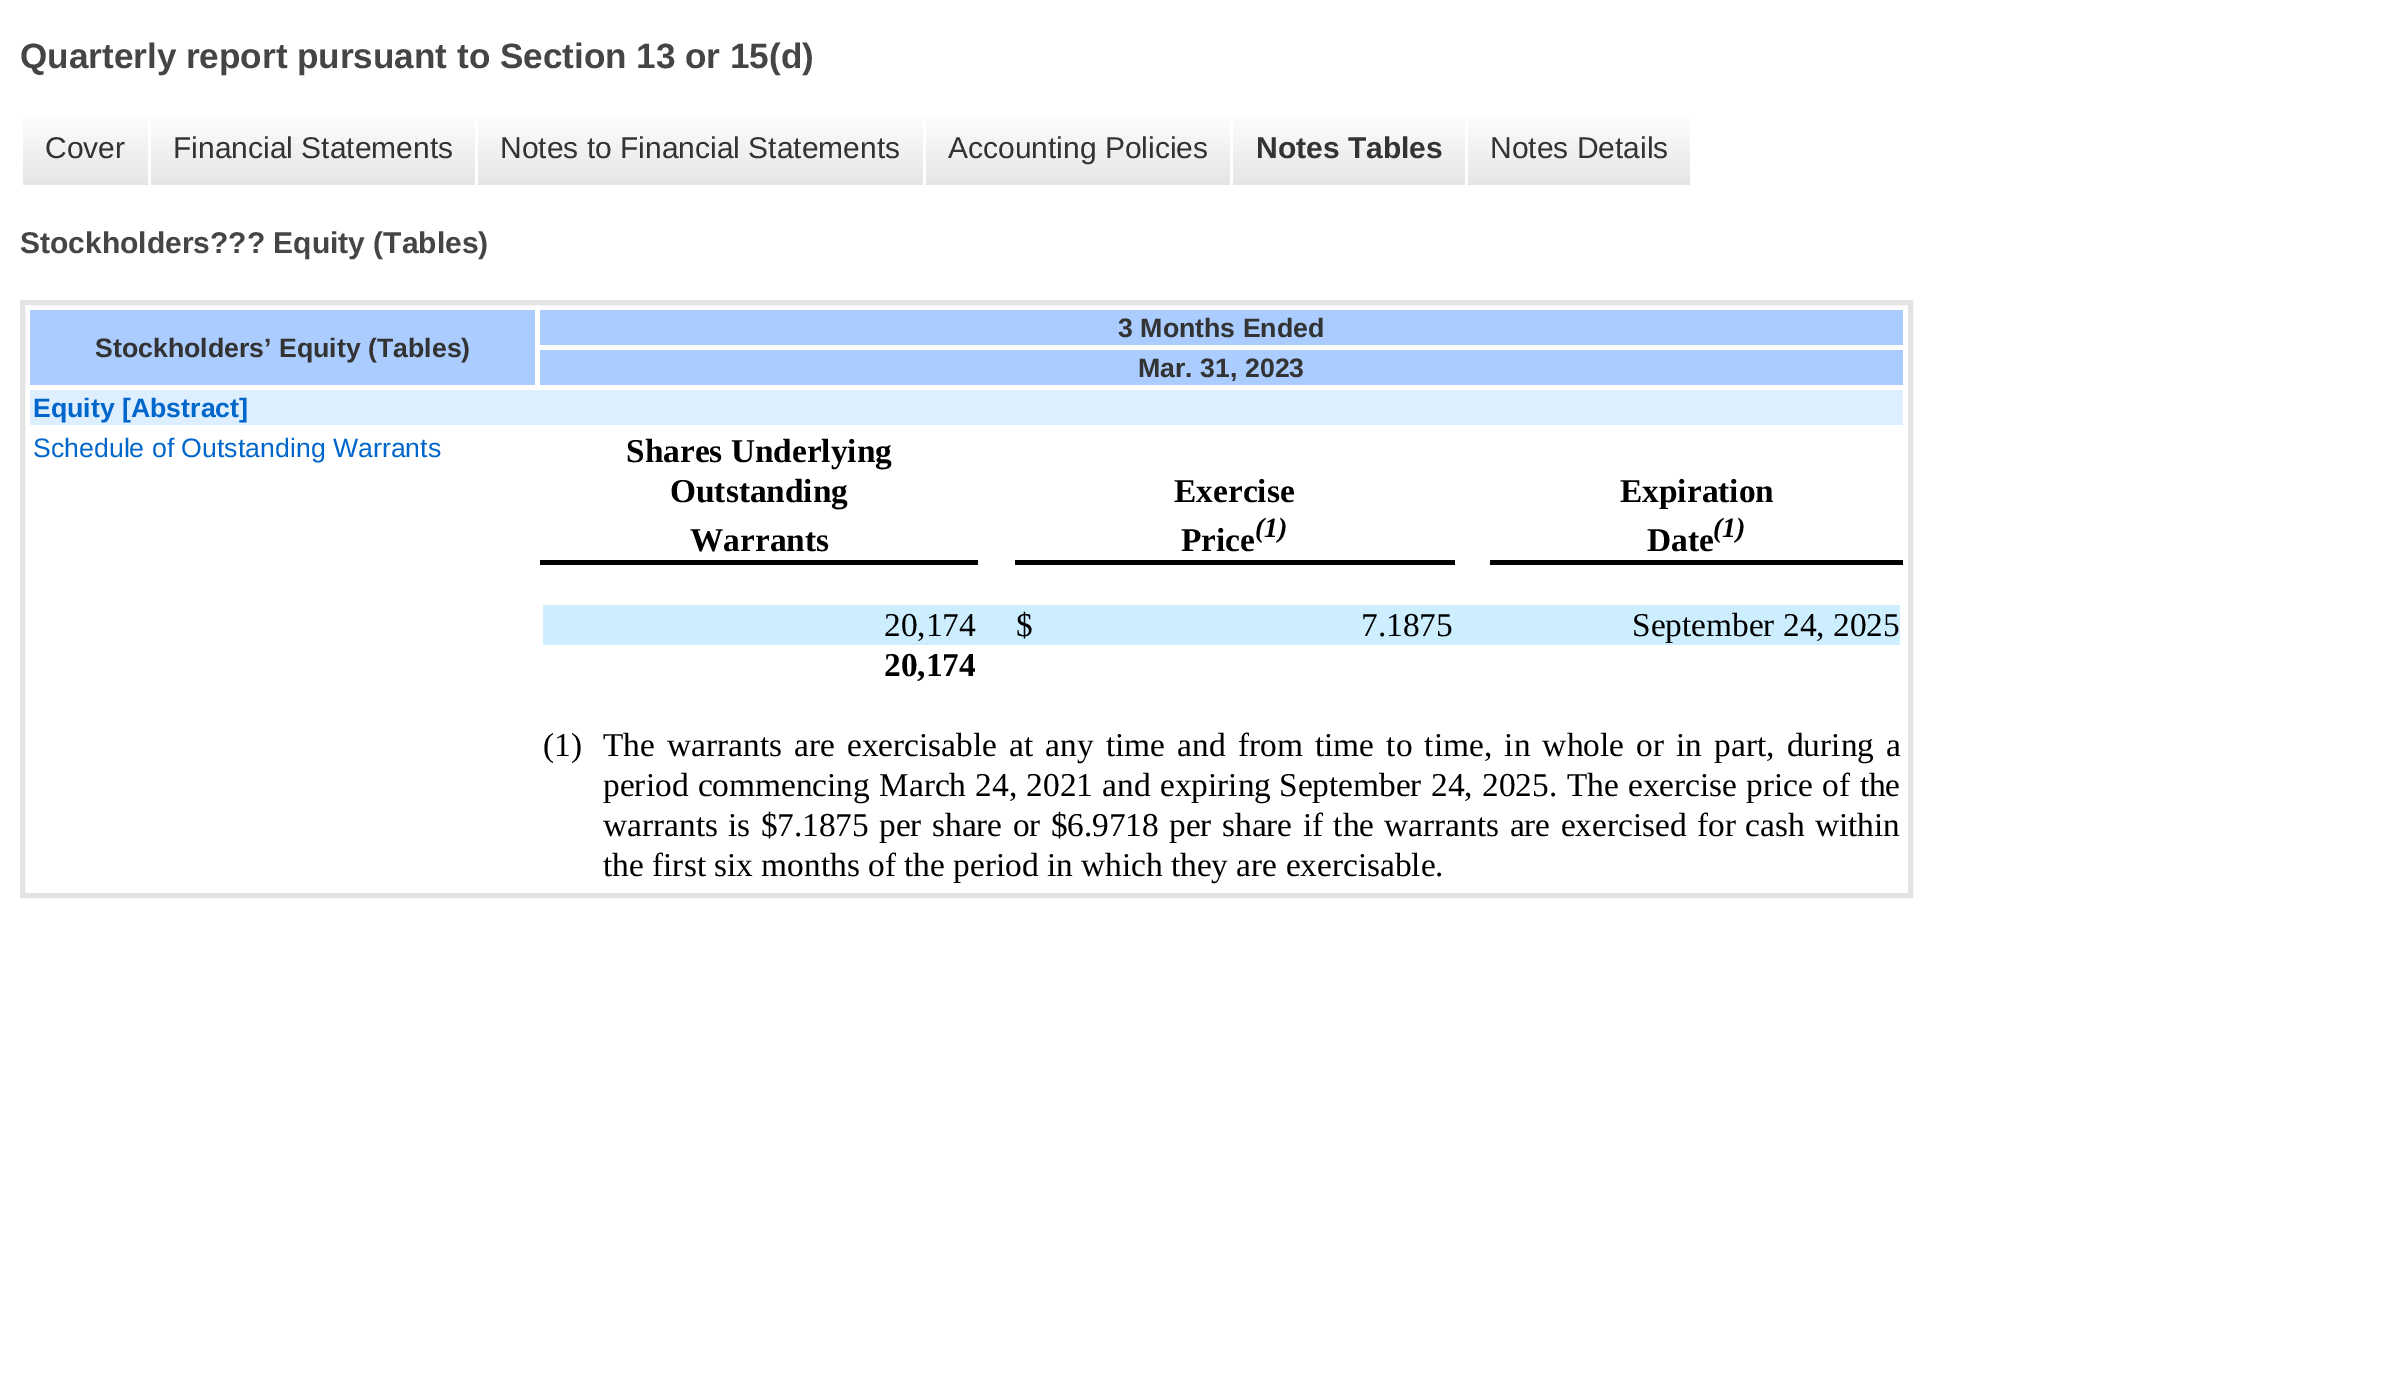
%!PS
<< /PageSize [2403 1398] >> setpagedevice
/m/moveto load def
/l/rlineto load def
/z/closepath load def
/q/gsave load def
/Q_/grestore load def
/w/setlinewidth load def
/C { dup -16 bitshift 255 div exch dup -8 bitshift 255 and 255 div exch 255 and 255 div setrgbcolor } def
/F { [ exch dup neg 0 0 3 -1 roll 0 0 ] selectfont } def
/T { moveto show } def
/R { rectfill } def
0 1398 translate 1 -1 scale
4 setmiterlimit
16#FFFFFF C
0 0 2403 1398 R
/LiberationSans-Bold 35.1 F
16#454545 C
(Quarterly report pursuant to Section 13 or 15\(d\)) 20 68 T
q 23 117 m 125 0 l 0 68 l -125 0 l z clip newpath
<< /ShadingType 2 /ColorSpace /DeviceRGB /Coords [85 110 85 185] /Extend [true true] /Function << /FunctionType 2 /Domain [0 1] /C0 [1 1 1] /C1 [.898 .898 .898] /N 1 >> >> shfill Q_
/LiberationSans-Regular 30 F
16#333333 C
(Cover) 45 158 T
q 151 117 m 324 0 l 0 68 l -324 0 l z clip newpath
<< /ShadingType 2 /ColorSpace /DeviceRGB /Coords [313 110 313 185] /Extend [true true] /Function << /FunctionType 2 /Domain [0 1] /C0 [1 1 1] /C1 [.898 .898 .898] /N 1 >> >> shfill Q_
(Financial Statements) 173 158 T
q 478 117 m 445 0 l 0 68 l -445 0 l z clip newpath
<< /ShadingType 2 /ColorSpace /DeviceRGB /Coords [700 110 700 185] /Extend [true true] /Function << /FunctionType 2 /Domain [0 1] /C0 [1 1 1] /C1 [.898 .898 .898] /N 1 >> >> shfill Q_
(Notes to Financial Statements) 500 158 T
q 926 117 m 304 0 l 0 68 l -304 0 l z clip newpath
<< /ShadingType 2 /ColorSpace /DeviceRGB /Coords [1078 110 1078 185] /Extend [true true] /Function << /FunctionType 2 /Domain [0 1] /C0 [1 1 1] /C1 [.898 .898 .898] /N 1 >> >> shfill Q_
(Accounting Policies) 948 158 T
q 1233 117 m 232 0 l 0 68 l -232 0 l z clip newpath
<< /ShadingType 2 /ColorSpace /DeviceRGB /Coords [1349 110 1349 185] /Extend [true true] /Function << /FunctionType 2 /Domain [0 1] /C0 [1 1 1] /C1 [.898 .898 .898] /N 1 >> >> shfill Q_
/LiberationSans-Bold 30 F
(Notes Tables) 1256 158 T
q 1468 117 m 222 0 l 0 68 l -222 0 l z clip newpath
<< /ShadingType 2 /ColorSpace /DeviceRGB /Coords [1579 110 1579 185] /Extend [true true] /Function << /FunctionType 2 /Domain [0 1] /C0 [1 1 1] /C1 [.898 .898 .898] /N 1 >> >> shfill Q_
/LiberationSans-Regular 30 F
(Notes Details) 1490 158 T
/LiberationSans-Bold 30 F
16#454545 C
(Stockholders??? Equity \(Tables\)) 20 253 T
16#E3E3E3 C
5 w
22.5 302.5 1888 593 rectstroke
16#AACCFF C
540 310 1363 35 R
/LiberationSans-Bold 26.7 F
16#333333 C
(3 Months Ended) 1118 337 T
16#AACCFF C
30 310 505 75 R
16#333333 C
(Stockholders’ Equity \(Tables\)) 95 357 T
16#AACCFF C
540 350 1363 35 R
16#333333 C
(Mar. 31, 2023) 1138 377 T
16#DDEEFF C
30 390 1873 35 R
16#0066CC C
(Equity [Abstract]) 33 417 T
/LiberationSans-Regular 26.7 F
(Schedule of Outstanding Warrants) 33 457 T
/LiberationSerif-Bold 33.35 F
16#000000 C
(Shares Underlying) 626 462 T
(Outstanding) 670 502 T
(Exercise) 1174 502 T
(Expiration) 1620 502 T
540 560 438 5 R
(Warrants) 690 551 T
1015 560 440 5 R
(Price) 1181 551 T
/LiberationSerif-BoldItalic 28 F
(\(1\)) 1255 537 T
1490 560 413 5 R
/LiberationSerif-Bold 33.35 F
(Date) 1647 551 T
/LiberationSerif-BoldItalic 28 F
(\(1\)) 1713 537 T
16#CCEEFF C
543 605 1357 40 R
/LiberationSerif-Regular 33.35 F
16#000000 C
(20,174) 884 636 T
($) 1016 636 T
(7.1875) 1361 636 T
(September 24, 2025) 1632 636 T
/LiberationSerif-Bold 33.35 F
(20,174) 884 676 T
/LiberationSerif-Regular 33.35 F
(\(1\)) 543 756 T
(The) 603 756 T
667 756 m 3.9 0 32 (warrants are exercisable at any time and from time to time, in whole or in part, during a) widthshow
603 796 m 1 0 32 (period commencing March 24, 2021 and expiring) widthshow
1279 796 m 1 0 32 (September 24, 2025) widthshow
1549 796 m 1 0 32 (. The exercise price of the) widthshow
603 836 m 2 0 32 (warrants is $) widthshow
(7.1875) 777 836 T
879 836 m 2 0 32 (per share or $) widthshow
(6.9718) 1067 836 T
1169 836 m 2 0 32 (per share if the warrants are exercised for) widthshow
1745 836 m 2 0 32 (cash within) widthshow
(the first six months of the period in which they are exercisable.) 603 876 T
showpage
